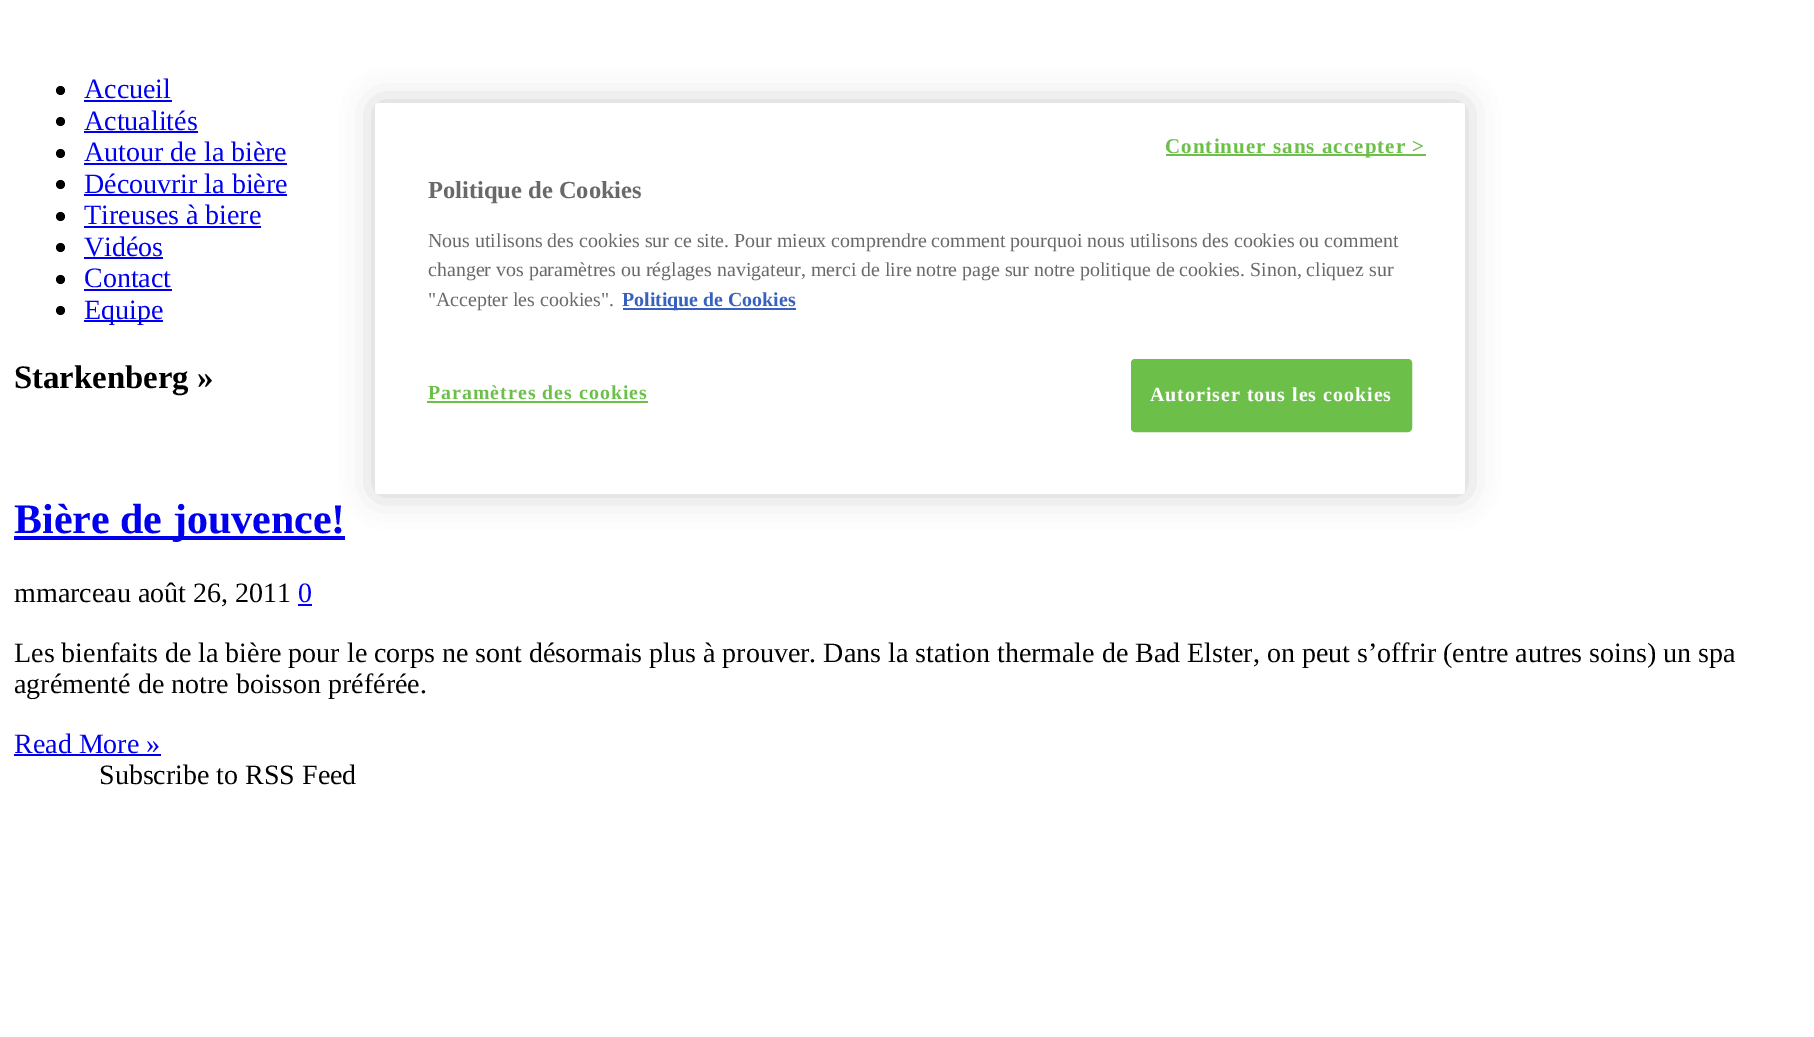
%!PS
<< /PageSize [1814 1037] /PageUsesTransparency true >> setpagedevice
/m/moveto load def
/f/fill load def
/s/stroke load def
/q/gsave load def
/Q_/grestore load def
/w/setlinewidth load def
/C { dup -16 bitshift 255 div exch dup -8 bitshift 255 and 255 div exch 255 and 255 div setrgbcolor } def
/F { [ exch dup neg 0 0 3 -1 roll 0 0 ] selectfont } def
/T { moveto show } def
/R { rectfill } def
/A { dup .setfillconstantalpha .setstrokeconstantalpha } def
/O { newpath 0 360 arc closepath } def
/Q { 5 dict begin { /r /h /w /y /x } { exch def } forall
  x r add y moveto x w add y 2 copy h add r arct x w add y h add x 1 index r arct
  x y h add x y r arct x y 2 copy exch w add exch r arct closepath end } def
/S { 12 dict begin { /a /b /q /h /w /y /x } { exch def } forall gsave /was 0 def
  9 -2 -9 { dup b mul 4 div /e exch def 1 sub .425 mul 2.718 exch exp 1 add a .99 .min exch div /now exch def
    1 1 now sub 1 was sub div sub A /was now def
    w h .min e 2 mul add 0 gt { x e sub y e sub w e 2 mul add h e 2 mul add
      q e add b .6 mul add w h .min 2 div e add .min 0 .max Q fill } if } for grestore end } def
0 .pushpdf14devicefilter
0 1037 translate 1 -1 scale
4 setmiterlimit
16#FFFFFF C
0 0 1814 1037 R
16#000000 C
60.5 90.5 4.5 O f
/LiberationSerif-Regular 28 F
16#0000EE C
(Accueil) 84 98 T
84 100 88 2 R
16#000000 C
60.5 121.5 4.5 O f
16#0000EE C
(Actualités) 84 130 T
84 131 114 2 R
16#000000 C
60.5 153.5 4.5 O f
16#0000EE C
(Autour de la bière) 84 161 T
84 163 203 2 R
16#000000 C
60.5 184.5 4.5 O f
16#0000EE C
(Découvrir la bière) 84 193 T
84 194 203 2 R
16#000000 C
60.5 216.5 4.5 O f
16#0000EE C
(Tireuses à biere) 84 224 T
84 226 177 2 R
16#000000 C
60.5 247.5 4.5 O f
16#0000EE C
(Vidéos) 84 256 T
84 257 79 2 R
16#000000 C
60.5 279.5 4.5 O f
16#0000EE C
(Contact) 84 287 T
84 289 88 2 R
16#000000 C
60.5 310.5 4.5 O f
16#0000EE C
84 320 79 2 R
(Equipe) 84 319 T
/LiberationSerif-Bold 32.75 F
16#000000 C
(Starkenberg ») 14 388 T
16#0000EE C
14 536 331 4 R
/LiberationSerif-Bold 42 F
(Bière de jouvence!) 14 533 T
/LiberationSerif-Regular 28 F
16#000000 C
(mmarceau août 26, 2011) 14 602 T
16#0000EE C
(0) 298 602 T
298 604 14 2 R
16#000000 C
(Les bienfaits de la bière pour le corps ne sont désormais plus à prouver. Dans la station thermale de Bad Elster, on peut s’offrir \(entre autres soins\) un spa) 14 662 T
(agrémenté de notre boisson préférée.) 14 693 T
16#0000EE C
(Read More ») 14 753 T
14 754 147 2 R
16#000000 C
(Subscribe to RSS Feed) 99 784 T
375 103 1090 391 4 16 .2 S
16#FFFFFF C
375 103 1090 391 4 Q f
/LiberationSerif-Bold 19.9 F
16#6CC04A C
428 399 m 1 0 (Paramètres des cookies) ashow
427 401 221 2 R
1166 154 260 2 R
/LiberationSerif-Bold 21 F
1165 153 m 1.05 0 (Continuer sans accepter >) ashow
1132 360 279 71 3 Q q f Q_
2 w
s
/LiberationSerif-Bold 19.9 F
16#FFFFFF C
1150 401 m 1 0 (Autoriser tous les cookies) ashow
/LiberationSerif-Bold 24.5 F
16#696969 C
(Politique de Cookies) 428 198 T
/LiberationSerif-Regular 19.9 F
(Nous utilisons des cookies sur ce site. Pour mieux comprendre comment pourquoi nous utilisons des cookies ou comment) 428 247 T
(changer vos paramètres ou réglages navigateur, merci de lire notre page sur notre politique de cookies. Sinon, cliquez sur) 428 276 T
("Accepter les cookies".) 428 306 T
16#3860BE C
623 308 173 2 R
/LiberationSerif-Bold 19.9 F
(Politique de Cookies) 622 306 T
.poppdf14devicefilter showpage
